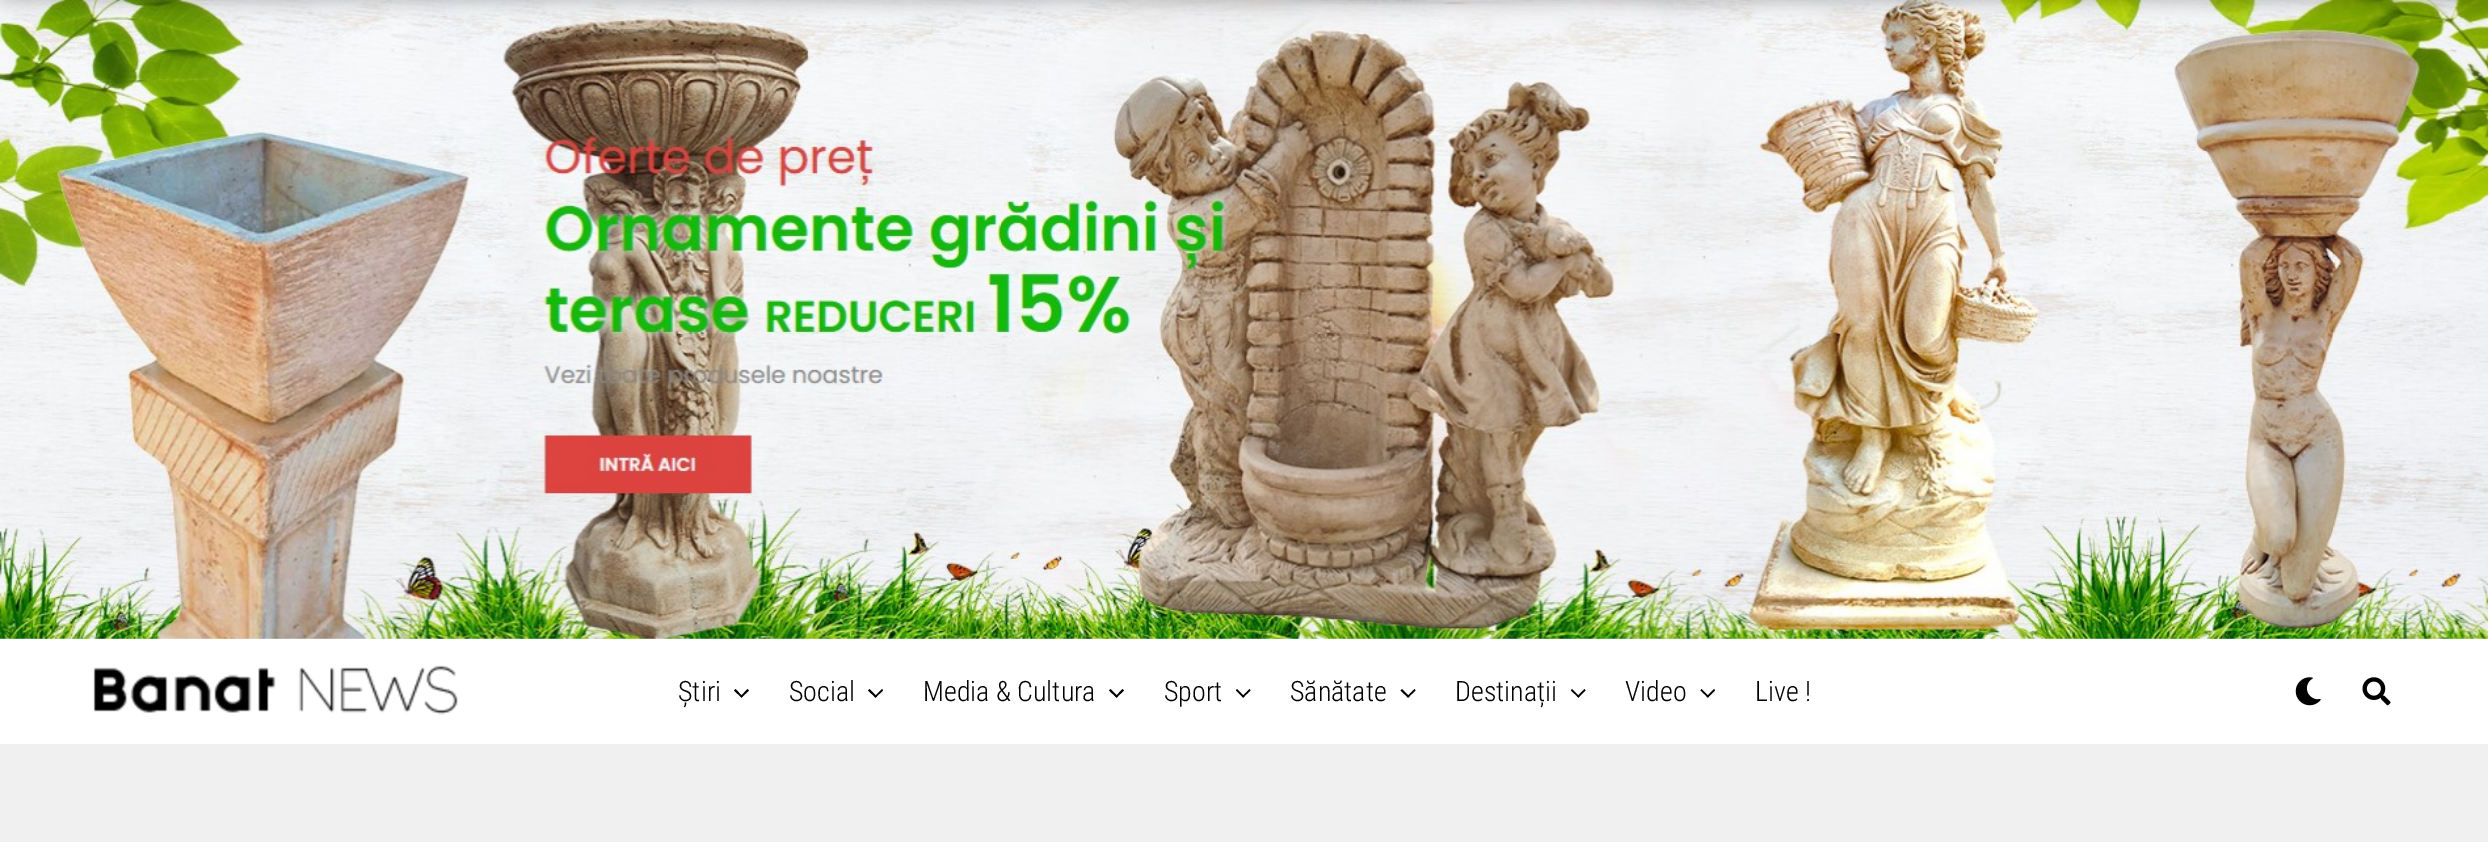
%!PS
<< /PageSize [2488 858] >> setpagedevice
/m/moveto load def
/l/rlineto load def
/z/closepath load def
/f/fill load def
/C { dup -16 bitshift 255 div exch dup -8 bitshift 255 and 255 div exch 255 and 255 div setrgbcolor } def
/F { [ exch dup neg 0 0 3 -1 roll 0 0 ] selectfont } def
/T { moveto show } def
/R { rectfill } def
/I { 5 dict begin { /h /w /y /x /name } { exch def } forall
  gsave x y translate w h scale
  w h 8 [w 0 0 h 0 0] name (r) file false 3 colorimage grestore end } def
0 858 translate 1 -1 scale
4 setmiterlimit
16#F0F0F0 C
0 0 2488 858 R
(1.rgb) 0 0 2488 639 I
16#FFFFFF C
0 639 2488 105 R
(2.rgb) 93 665 365 50 I
/RobotoCondensed-Light 28 F
16#000000 C
(Știri) 678 701 T
747.5 689 m 1.5 1.5 l -7.5 7 l -1 -1 l z f
735.5 689 m 7 7.5 l -1 1 l -7.5 -7 l z f
(Social) 789 701 T
882 689 m 1 1.5 l -7.5 7 l -1 -1 l z f
869.5 689 m 7.5 7.5 l -1.5 1 l -7.5 -7 l z f
(Media & Cultura) 923 701 T
1122.5 689 m 1.5 1.5 l -7.5 7 l -1 -1 l z f
1110.5 689 m 7.5 7.5 l -1.5 1 l -7.5 -7 l z f
(Sport) 1164 701 T
1249.5 689 m 1 1.5 l -7.5 7 l -1 -1 l z f
1237 689 m 7.5 7.5 l -1.5 1 l -7 -7 l z f
(Sănătate) 1290 701 T
1414.5 689 m 1 1.5 l -7.5 7 l -1 -1 l z f
1402 689 m 7.5 7.5 l -1.5 1 l -7.5 -7 l z f
(Destinații) 1455 701 T
1584.5 689 m 1 1.5 l -7 7 l -1.5 -1 l z f
1572 689 m 7.5 7.5 l -1 1 l -7.5 -7 l z f
(Video) 1625 701 T
1714 689 m 1 1.5 l -7 7 l -1.5 -1 l z f
1701.5 689 m 7.5 7.5 l -1 1 l -7.5 -7 l z f
(Live !) 1755 701 T
(3.rgb) 2295 677 26 29 I
(4.rgb) 2362 677 29 29 I
16#FFFFFF C
0 842 2488 16 R
showpage
